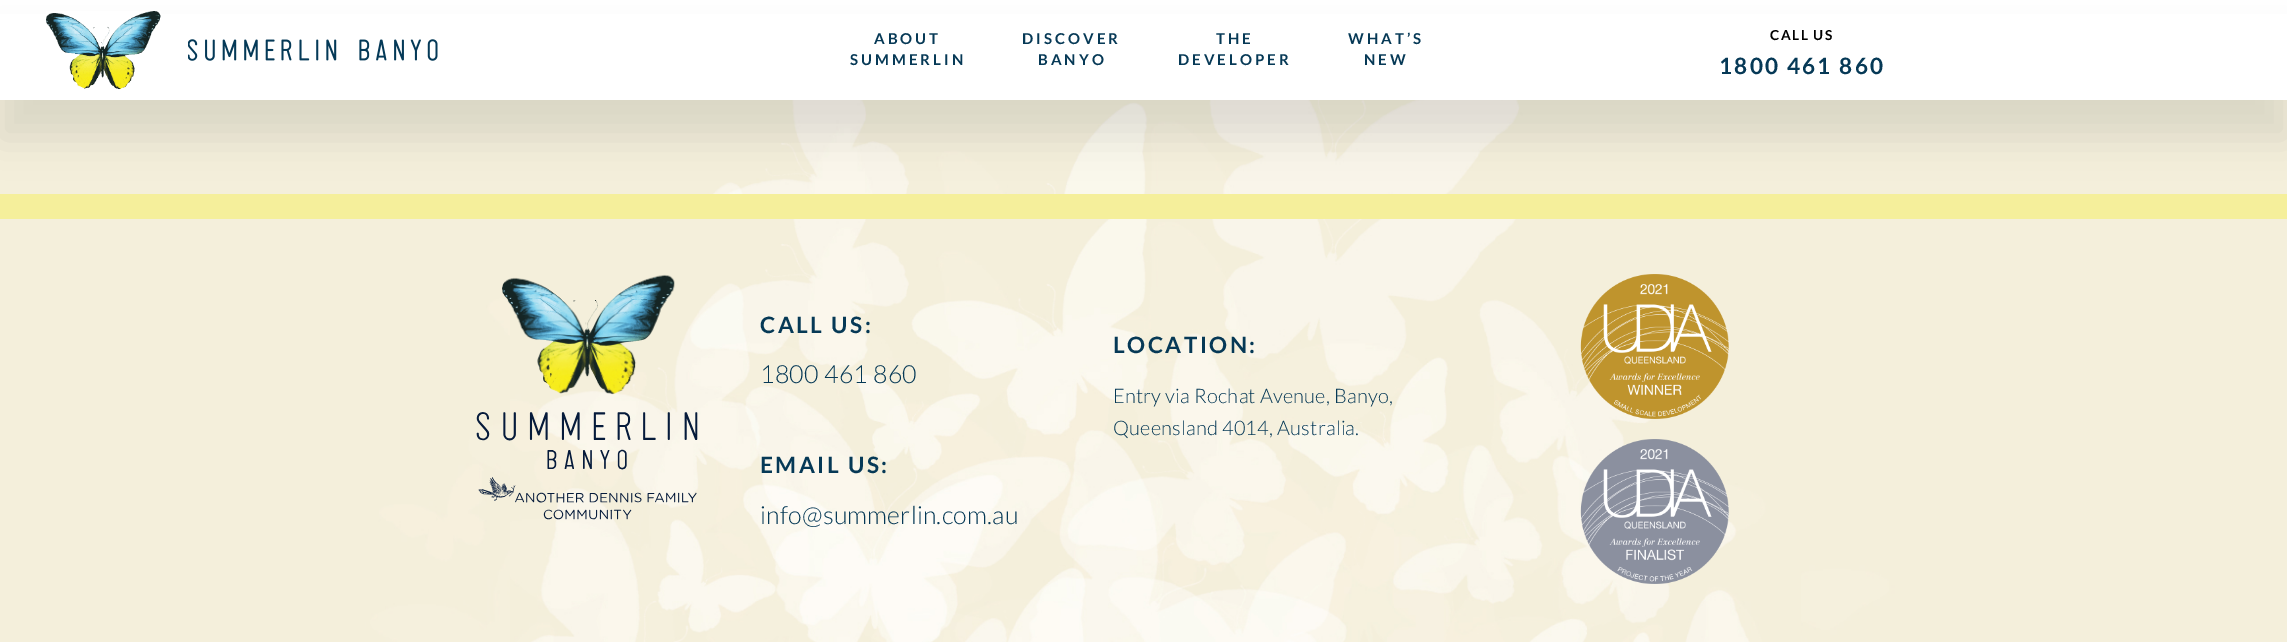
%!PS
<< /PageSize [2287 642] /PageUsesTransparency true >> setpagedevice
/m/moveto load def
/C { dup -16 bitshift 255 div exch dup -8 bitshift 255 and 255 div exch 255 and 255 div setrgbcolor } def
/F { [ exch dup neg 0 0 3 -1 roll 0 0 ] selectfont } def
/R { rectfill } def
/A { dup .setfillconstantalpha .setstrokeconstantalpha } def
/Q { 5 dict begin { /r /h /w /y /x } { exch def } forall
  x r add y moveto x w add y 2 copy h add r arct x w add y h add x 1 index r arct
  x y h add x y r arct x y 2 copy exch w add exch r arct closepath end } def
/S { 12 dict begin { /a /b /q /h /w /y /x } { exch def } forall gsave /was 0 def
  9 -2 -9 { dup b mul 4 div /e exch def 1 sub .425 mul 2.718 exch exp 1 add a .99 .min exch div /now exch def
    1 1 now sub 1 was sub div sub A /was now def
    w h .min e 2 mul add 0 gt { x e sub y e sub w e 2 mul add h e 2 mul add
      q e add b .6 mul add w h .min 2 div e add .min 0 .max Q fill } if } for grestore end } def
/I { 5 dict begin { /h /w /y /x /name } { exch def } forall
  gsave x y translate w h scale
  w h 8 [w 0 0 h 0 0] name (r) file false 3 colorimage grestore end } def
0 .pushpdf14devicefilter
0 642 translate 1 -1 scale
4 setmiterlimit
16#FFFFFF C
0 0 2287 642 R
(3.rgb) 0 100 2287 542 I
16#F5EF9B C
0 194 2287 25 R
16#000000 C
0 38 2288 100 0 19 .1 S
16#FFFFFF C
0 14 2287 86 R
(1.rgb) 46 11 115 79 I
(2.rgb) 188 39 250 22 I
/Lato-Bold 15 F
16#063956 C
874 44 m 3 0 (ABOUT) ashow
850 65 m 3 0 (SUMMERLIN) ashow
1022 44 m 3 0 (DISCOVER) ashow
1038 65 m 3 0 (BANYO) ashow
1216 44 m 3 0 (THE) ashow
1178 65 m 3 0 (DEVELOPER) ashow
1348 44 m 3 0 (WHAT’S) ashow
1364 65 m 3 0 (NEW) ashow
/Lato-Bold 13.75 F
16#000000 C
1770 40 m 1.5 0 (CALL US) ashow
/Lato-Bold 22.5 F
16#063956 C
1719 74 m 2.25 0 (1800 461 860) ashow
(4.rgb) 510 219 1291 423 I
(5.rgb) 502 274 173 121 I
(6.rgb) 476 412 222 108 I
760 333 m 2.5 0 (CALL US:) ashow
/Lato-Light 25 F
760 383 m .2 0 (1800 461 860) ashow
/Lato-Bold 22.5 F
760 473 m 2.5 0 (EMAIL US:) ashow
/Lato-Light 25 F
760 524 m .2 0 (info@summerlin.com.au) ashow
/Lato-Bold 22.5 F
1113 353 m 2.5 0 (LOCATION:) ashow
/Lato-Light 20 F
1113 403 m .2 0 (Entry via Rochat Avenue, Banyo,) ashow
1113 435 m .2 0 (Queensland 4014, Australia.) ashow
(7.rgb) 1580 274 149 145 I
(8.rgb) 1580 439 149 145 I
.poppdf14devicefilter showpage
